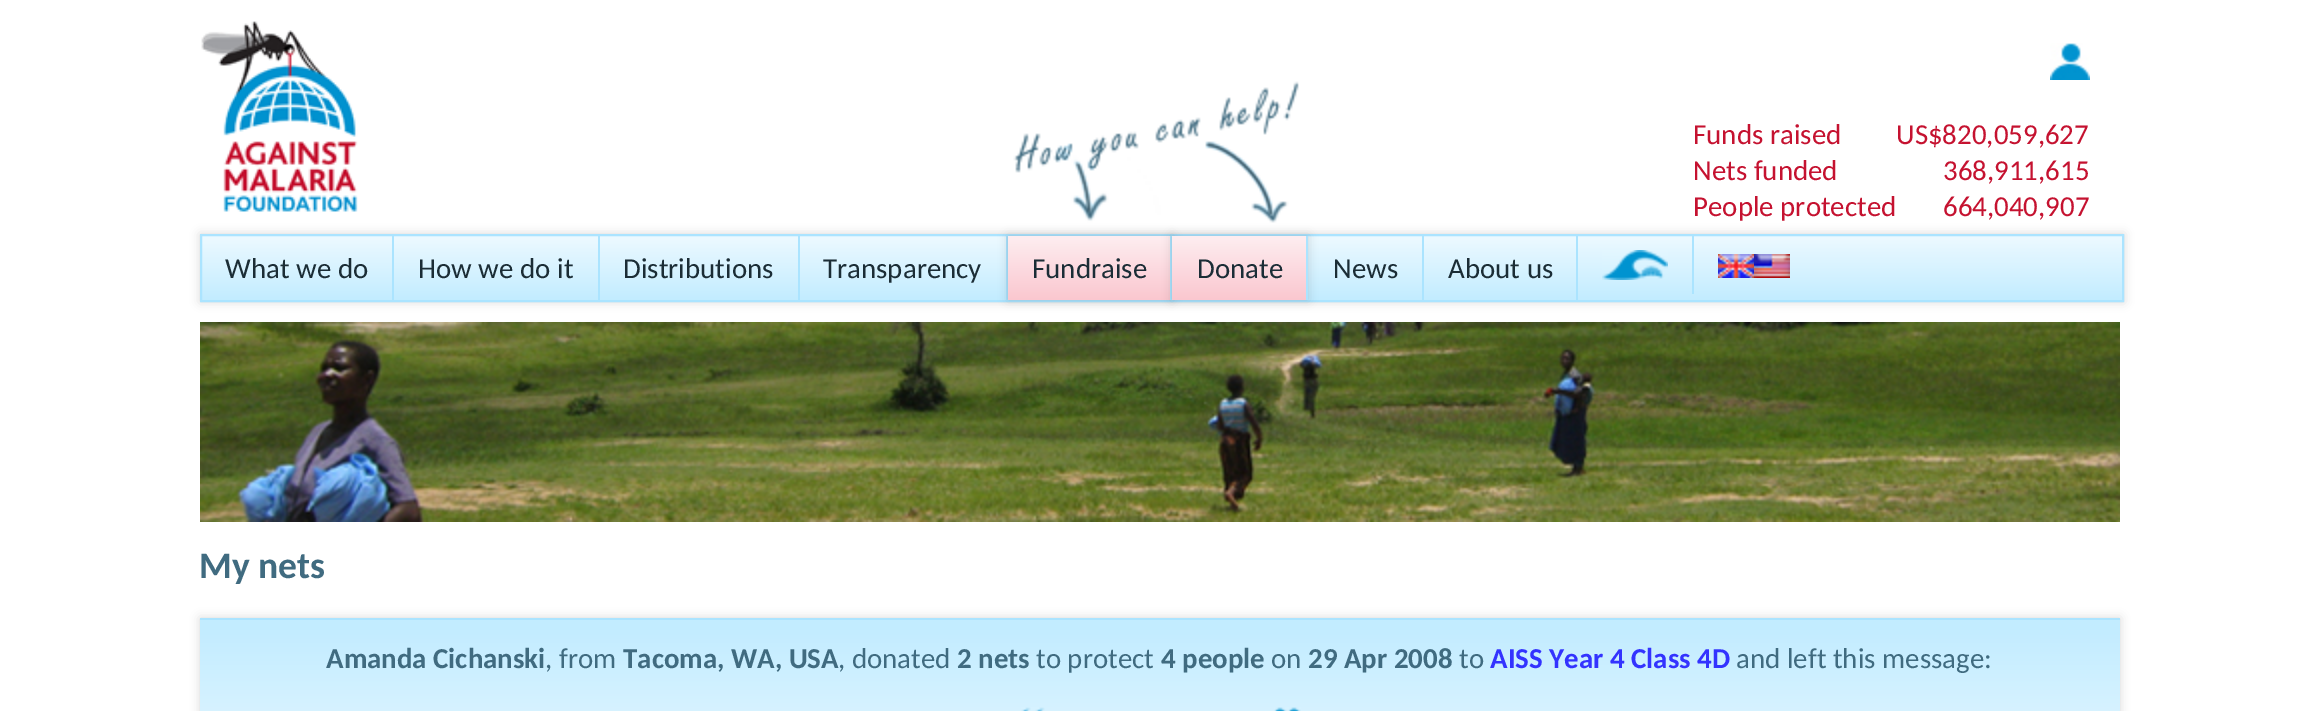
%!PS
<< /PageSize [2318 711] /PageUsesTransparency true >> setpagedevice
/m/moveto load def
/l/rlineto load def
/z/closepath load def
/q/gsave load def
/Q_/grestore load def
/w/setlinewidth load def
/C { dup -16 bitshift 255 div exch dup -8 bitshift 255 and 255 div exch 255 and 255 div setrgbcolor } def
/F { [ exch dup neg 0 0 3 -1 roll 0 0 ] selectfont } def
/T { moveto show } def
/R { rectfill } def
/A { dup .setfillconstantalpha .setstrokeconstantalpha } def
/Q { 5 dict begin { /r /h /w /y /x } { exch def } forall
  x r add y moveto x w add y 2 copy h add r arct x w add y h add x 1 index r arct
  x y h add x y r arct x y 2 copy exch w add exch r arct closepath end } def
/S { 12 dict begin { /a /b /q /h /w /y /x } { exch def } forall gsave /was 0 def
  9 -2 -9 { dup b mul 4 div /e exch def 1 sub .425 mul 2.718 exch exp 1 add a .99 .min exch div /now exch def
    1 1 now sub 1 was sub div sub A /was now def
    w h .min e 2 mul add 0 gt { x e sub y e sub w e 2 mul add h e 2 mul add
      q e add b .6 mul add w h .min 2 div e add .min 0 .max Q fill } if } for grestore end } def
/I { 5 dict begin { /h /w /y /x /name } { exch def } forall
  gsave x y translate w h scale
  w h 8 [w 0 0 h 0 0] name (r) file false 3 colorimage grestore end } def
0 .pushpdf14devicefilter
0 711 translate 1 -1 scale
4 setmiterlimit
16#FFFFFF C
0 0 2318 711 R
(1.rgb) 201 21 157 191 I
(2.rgb) 2050 43 40 37 I
/Carlito-Regular 28.9 F
16#C51230 C
(Funds raised) 1693 144 T
(US$820,059,627) 1896 144 T
(Nets funded) 1693 180 T
(368,911,615) 1943 180 T
(People protected) 1693 216 T
(664,040,907) 1943 216 T
16#000000 C
200 234 1924 68 0 5 .15 S
q 202 236 m 1920 0 l 0 64 l -1920 0 l z clip newpath
<< /ShadingType 2 /ColorSpace /DeviceRGB /Coords [202 236 202 300] /Extend [true true] /Function << /FunctionType 3 /Domain [0 1] /Functions [<< /FunctionType 2 /Domain [0 1] /C0 [.922 .976 1] /C1 [.922 .976 1] /N 1 >> << /FunctionType 2 /Domain [0 1] /C0 [.922 .976 1] /C1 [.761 .925 1] /N 1 >>] /Bounds [.05] /Encode [0 1 0 1] >> >> shfill Q_
16#ABE4FF C
2 w
201 235 1922 66 rectstroke
1006 236 2 64 R
16#000000 C
1008 236 164 64 0 5 .15 S
q 1008 236 m 162 0 l 0 64 l -162 0 l z clip newpath
<< /ShadingType 2 /ColorSpace /DeviceRGB /Coords [1008 236 1008 300] /Extend [true true] /Function << /FunctionType 3 /Domain [0 1] /Functions [<< /FunctionType 2 /Domain [0 1] /C0 [.992 .925 .937] /C1 [.992 .925 .937] /N 1 >> << /FunctionType 2 /Domain [0 1] /C0 [.992 .925 .937] /C1 [.98 .78 .812] /N 1 >>] /Bounds [.05] /Encode [0 1 0 1] >> >> shfill Q_
16#ABE4FF C
1170 236 2 64 R
16#000000 C
1172 236 136 64 0 5 .15 S
(3.rgb) 1013 81 286 142 I
16#ABE4FF C
392 236 2 64 R
16#1B2D36 C
(What we do) 225 278 T
16#ABE4FF C
598 236 2 64 R
16#1B2D36 C
(How we do it) 418 278 T
16#ABE4FF C
798 236 2 64 R
16#1B2D36 C
(Distributions) 623 278 T
(Transparency) 823 278 T
(Fundraise) 1032 278 T
q 1172 236 m 134 0 l 0 64 l -134 0 l z clip newpath
<< /ShadingType 2 /ColorSpace /DeviceRGB /Coords [1172 236 1172 300] /Extend [true true] /Function << /FunctionType 3 /Domain [0 1] /Functions [<< /FunctionType 2 /Domain [0 1] /C0 [.992 .925 .937] /C1 [.992 .925 .937] /N 1 >> << /FunctionType 2 /Domain [0 1] /C0 [.992 .925 .937] /C1 [.98 .78 .812] /N 1 >>] /Bounds [.05] /Encode [0 1 0 1] >> >> shfill Q_
16#ABE4FF C
1306 236 2 64 R
16#1B2D36 C
(Donate) 1197 278 T
16#ABE4FF C
1422 236 2 64 R
16#1B2D36 C
(News) 1333 278 T
16#ABE4FF C
1576 236 2 64 R
16#1B2D36 C
(About us) 1448 278 T
16#ABE4FF C
1692 236 2 58 R
(4.rgb) 1602 250 66 30 I
(5.rgb) 1718 254 36 24 I
(6.rgb) 1754 254 36 24 I
(7.rgb) 200 322 1920 200 I
/Carlito-Bold 37.5 F
16#406B80 C
(My nets) 199 578 T
16#000000 C
200 618 1920 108 0 5 .15 S
q 200 620 m 1920 0 l 0 91 l -1920 0 l z clip newpath
<< /ShadingType 2 /ColorSpace /DeviceRGB /Coords [200 620 200 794] /Extend [true true] /Function << /FunctionType 3 /Domain [0 1] /Functions [<< /FunctionType 2 /Domain [0 1] /C0 [.761 .925 1] /C1 [.761 .925 1] /N 1 >> << /FunctionType 2 /Domain [0 1] /C0 [.761 .925 1] /C1 [.922 .976 1] /N 1 >>] /Bounds [.05] /Encode [0 1 0 1] >> >> shfill Q_
16#ABE4FF C
200 618 1920 2 R
/Carlito-Bold 28.9 F
16#406B80 C
(Amanda Cichanski) 326 668 T
/Carlito-Regular 28.9 F
(, from) 545 668 T
/Carlito-Bold 28.9 F
(Tacoma, WA, USA) 623 668 T
/Carlito-Regular 28.9 F
(, donated) 838 668 T
/Carlito-Bold 28.9 F
(2 nets) 957 668 T
/Carlito-Regular 28.9 F
(to protect) 1036 668 T
/Carlito-Bold 28.9 F
(4 people) 1161 668 T
/Carlito-Regular 28.9 F
(on) 1271 668 T
/Carlito-Bold 28.9 F
(29 Apr 2008) 1308 668 T
/Carlito-Regular 28.9 F
(to) 1459 668 T
/Carlito-Bold 28.9 F
16#3333FF C
(AISS Year 4 Class 4D) 1490 668 T
/Carlito-Regular 28.9 F
16#406B80 C
(and left this message:) 1736 668 T
(8.rgb) 1021 707 24 4 I
(9.rgb) 1274 707 27 4 I
.poppdf14devicefilter showpage
